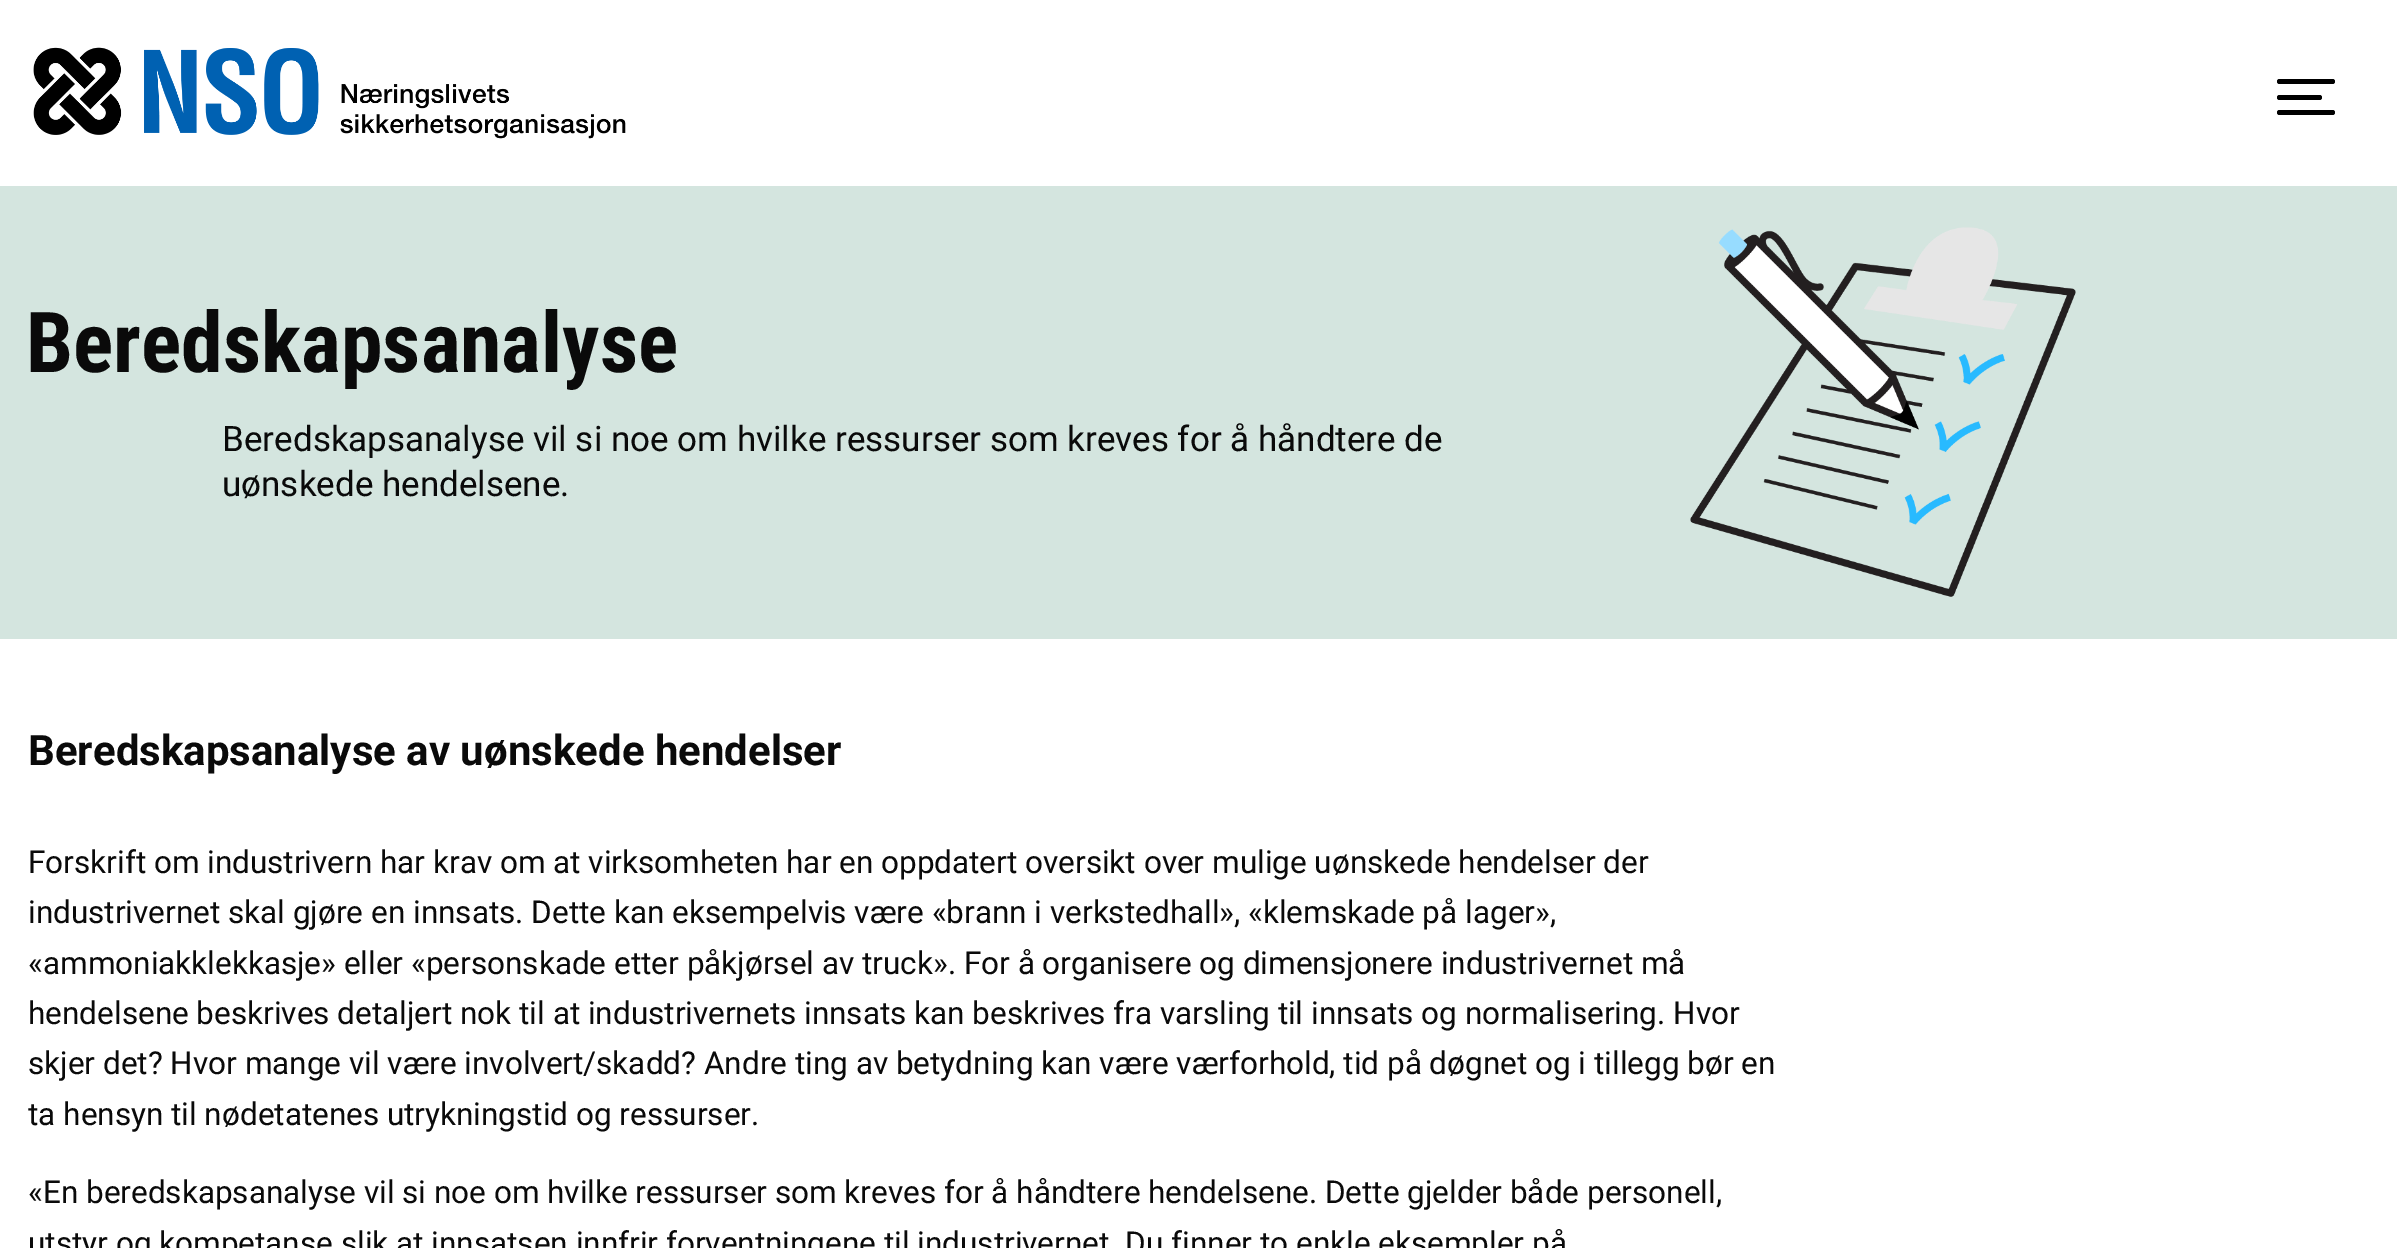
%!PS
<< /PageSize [2397 1248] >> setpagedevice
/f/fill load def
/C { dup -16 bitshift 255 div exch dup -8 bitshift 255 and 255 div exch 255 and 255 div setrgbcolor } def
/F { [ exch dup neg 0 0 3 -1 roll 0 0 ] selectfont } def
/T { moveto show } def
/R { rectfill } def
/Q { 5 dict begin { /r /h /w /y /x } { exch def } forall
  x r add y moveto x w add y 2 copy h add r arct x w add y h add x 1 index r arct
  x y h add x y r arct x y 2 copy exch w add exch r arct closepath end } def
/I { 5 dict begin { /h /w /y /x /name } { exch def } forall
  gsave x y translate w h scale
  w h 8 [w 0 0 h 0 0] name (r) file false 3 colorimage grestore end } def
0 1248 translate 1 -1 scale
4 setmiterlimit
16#FFFFFF C
0 0 2397 1248 R
(1.rgb) 33 47 593 92 I
16#000000 C
2277 79 58 5 2.5 Q f
2277 95 45 5 2.5 Q f
2277 110 58 5 2.5 Q f
16#D4E5DF C
0 186 2397 453 R
/RobotoCondensed-Bold 84 F
16#0A0A0A C
(Beredskapsanalyse) 26 372 T
/Roboto-Regular 35 F
(Beredskapsanalyse vil si noe om hvilke ressurser som kreves for å håndtere de) 222 451 T
(uønskede hendelsene.) 222 496 T
(2.rgb) 1690 227 386 370 I
/Roboto-Bold 42 F
(Beredskapsanalyse av uønskede hendelser) 28 765 T
/Roboto-Regular 31.5 F
(Forskrift om industrivern har krav om at virksomheten har en oppdatert oversikt over mulige uønskede hendelser der) 28 873 T
(industrivernet skal gjøre en innsats. Dette kan eksempelvis være «brann i verkstedhall», «klemskade på lager»,) 28 923 T
(«ammoniakklekkasje» eller «personskade etter påkjørsel av truck». For å organisere og dimensjonere industrivernet må) 28 974 T
(hendelsene beskrives detaljert nok til at industrivernets innsats kan beskrives fra varsling til innsats og normalisering. Hvor) 28 1024 T
(skjer det? Hvor mange vil være involvert/skadd? Andre ting av betydning kan være værforhold, tid på døgnet og i tillegg bør en) 28 1074 T
(ta hensyn til nødetatenes utrykningstid og ressurser.) 28 1125 T
(«En beredskapsanalyse vil si noe om hvilke ressurser som kreves for å håndtere hendelsene. Dette gjelder både personell,) 28 1203 T
(utstyr og kompetanse slik at innsatsen innfrir forventningene til industrivernet. Du finner to enkle eksempler på) 28 1254 T
showpage
